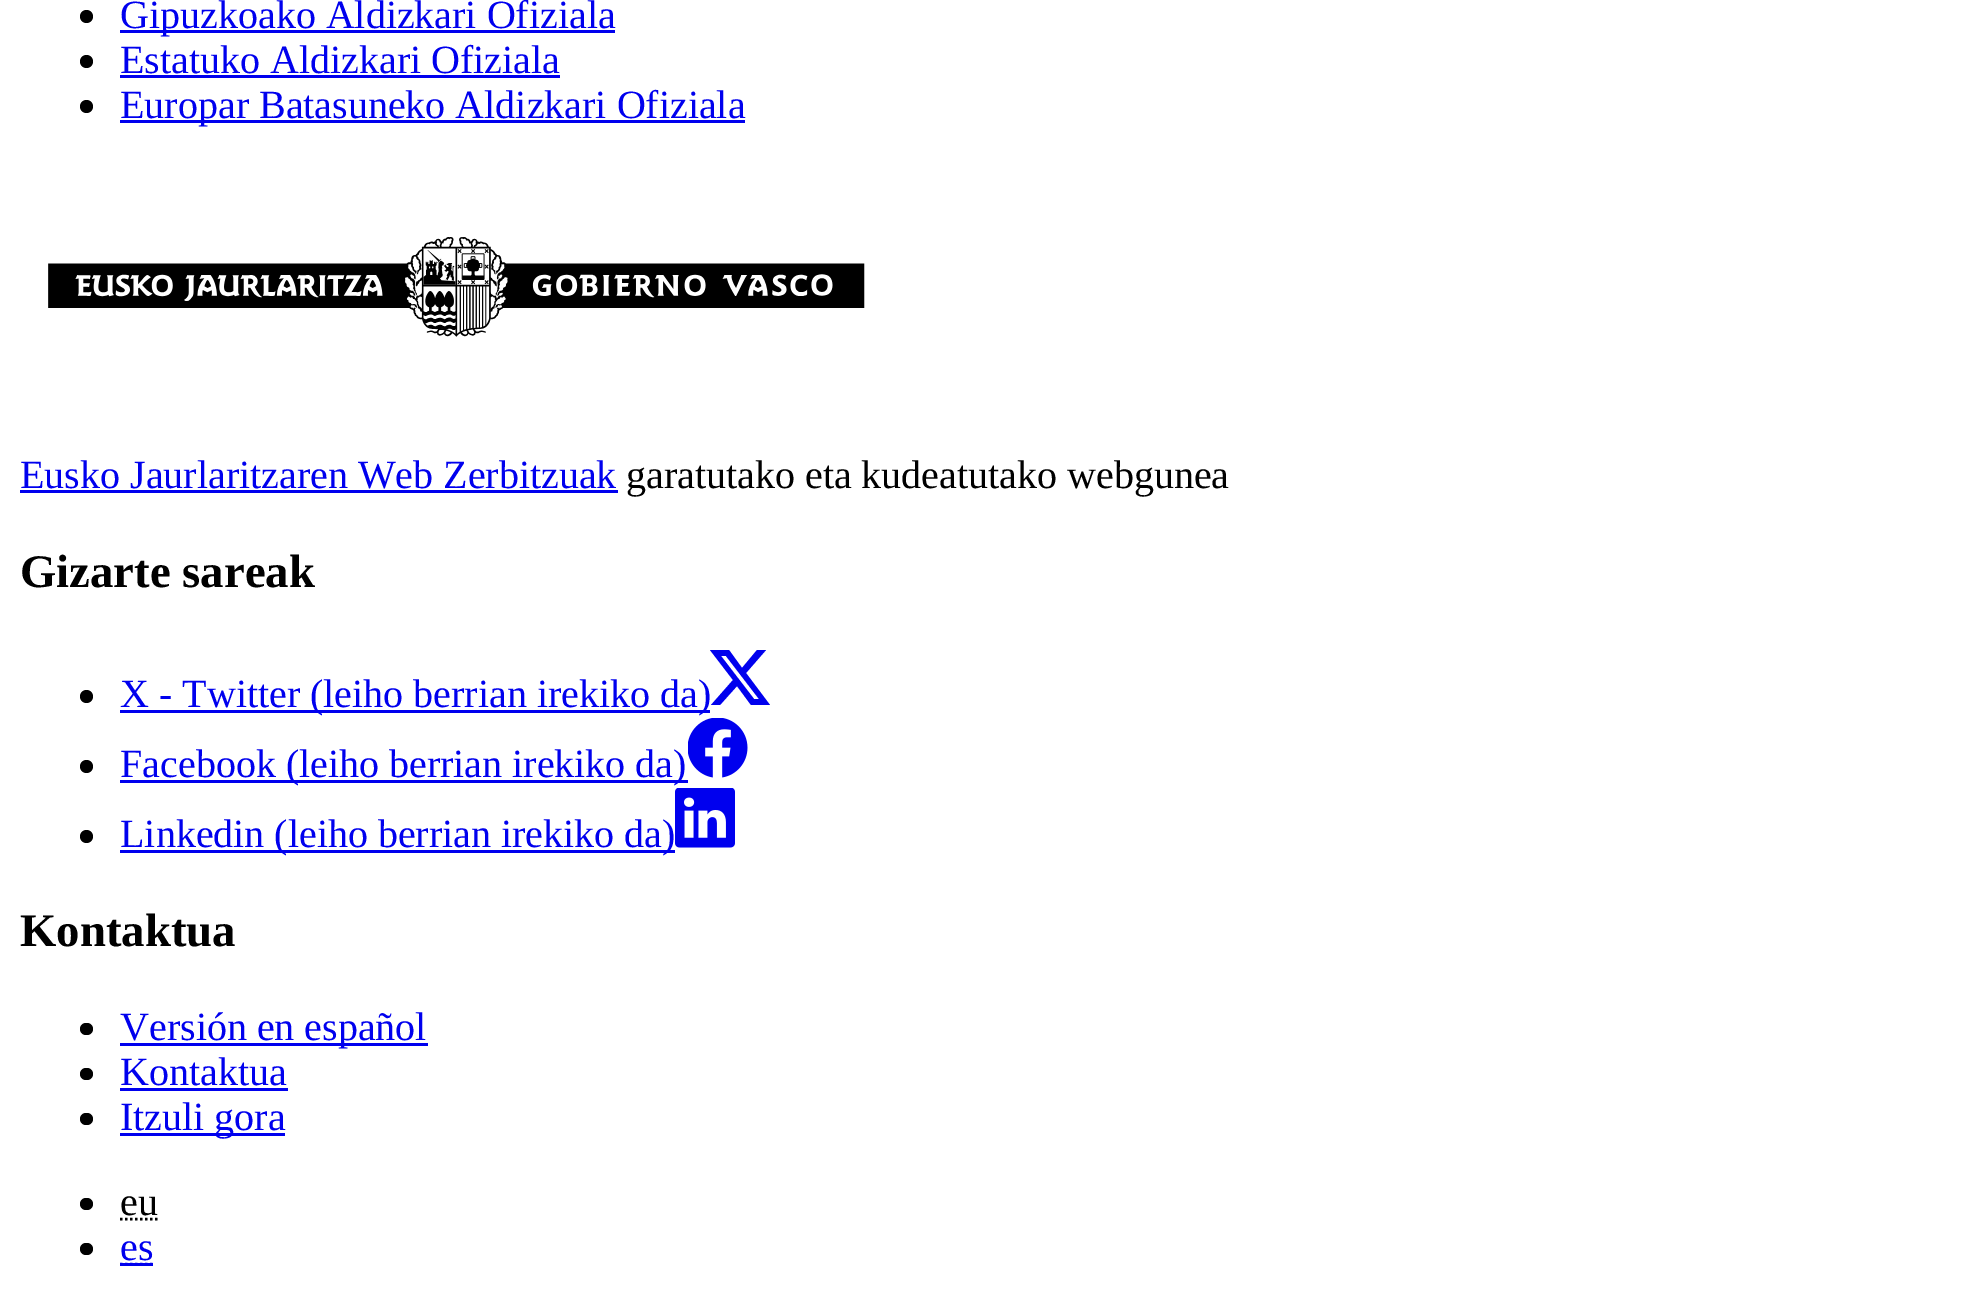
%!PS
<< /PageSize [1976 1310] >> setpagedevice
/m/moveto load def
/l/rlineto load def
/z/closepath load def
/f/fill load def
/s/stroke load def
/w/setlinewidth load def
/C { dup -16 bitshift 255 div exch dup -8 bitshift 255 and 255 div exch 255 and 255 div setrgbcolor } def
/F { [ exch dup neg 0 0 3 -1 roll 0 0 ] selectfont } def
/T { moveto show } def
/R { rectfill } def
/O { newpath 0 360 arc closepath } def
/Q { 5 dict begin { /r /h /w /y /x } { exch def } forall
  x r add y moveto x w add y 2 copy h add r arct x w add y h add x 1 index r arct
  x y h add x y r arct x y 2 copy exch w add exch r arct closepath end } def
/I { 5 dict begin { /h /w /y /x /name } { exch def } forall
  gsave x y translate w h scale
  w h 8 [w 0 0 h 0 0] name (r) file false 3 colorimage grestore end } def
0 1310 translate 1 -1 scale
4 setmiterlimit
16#FFFFFF C
0 0 1976 1310 R
16#000000 C
86.5 16.5 6.5 O f
16#0000EE C
120 30 495 3 R
/LiberationSerif-Regular 40 F
(Gipuzkoako Aldizkari Ofiziala) 120 28 T
16#000000 C
86.5 61.5 6.5 O f
16#0000EE C
(Estatuko Aldizkari Ofiziala) 120 73 T
120 75 440 3 R
16#000000 C
86.5 106.5 6.5 O f
16#0000EE C
120 120 625 3 R
(Europar Batasuneko Aldizkari Ofiziala) 120 118 T
(1.rgb) 48 237 817 100 I
(Eusko Jaurlaritzaren Web Zerbitzuak) 20 488 T
20 490 598 3 R
16#000000 C
(garatutako eta kudeatutako webgunea) 626 488 T
/LiberationSerif-Bold 46.75 F
(Gizarte sareak) 20 587 T
86.5 696.5 6.5 O f
16#0000EE C
120 710 590 3 R
/LiberationSerif-Regular 40 F
(X - Twitter \(leiho berrian irekiko da\)) 120 707 T
757 650 m 9 0 l -20 23 l 24 32 l -19 0 l -14 -19 l -17 19 l -9 0 l 22 -25 l -23 -30 l 19 0 l 13 18 l z 754 699 m 5 0 l -33 -43 l -5 0 l z f
16#000000 C
86.5 766.5 6.5 O f
16#0000EE C
120 780 568 3 R
(Facebook \(leiho berrian irekiko da\)) 120 777 T
(2.rgb) 688 718 60 60 I
16#000000 C
86.5 836.5 6.5 O f
16#0000EE C
120 850 555 3 R
(Linkedin \(leiho berrian irekiko da\)) 120 847 T
(3.rgb) 675 788 60 60 I
/LiberationSerif-Bold 46.75 F
16#000000 C
(Kontaktua) 20 946 T
80 1023 13 12 6 Q f
16#0000EE C
120 1043 308 3 R
/LiberationSerif-Regular 40 F
(Versión en español) 120 1040 T
16#000000 C
80 1068 13 12 6 Q f
16#0000EE C
(Kontaktua) 120 1085 T
120 1088 168 3 R
16#000000 C
80 1113 13 12 6 Q f
16#0000EE C
120 1133 165 3 R
(Itzuli gora) 120 1130 T
16#000000 C
80 1198 13 12 6 Q f
(eu) 120 1215 T
2.5 w
[2.5 2.5] 0 setdash
120 1219 m 38 0 l s
80 1243 13 12 6 Q f
16#0000EE C
(es) 120 1260 T
120 1264 m 33.5 0 l s
120 1263 33 3 R
showpage
